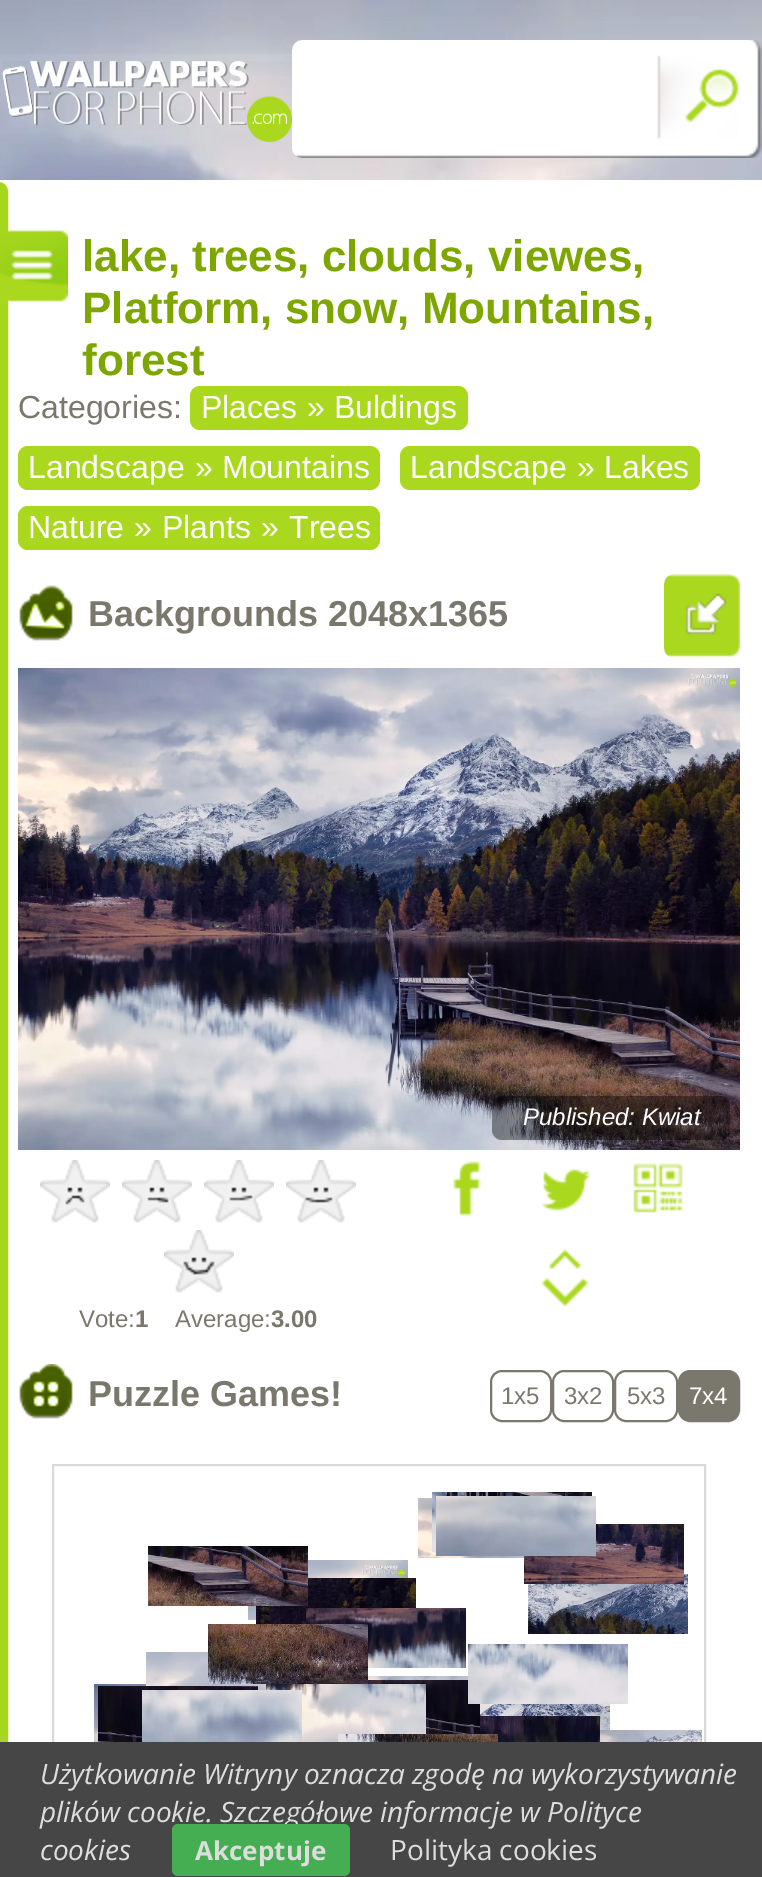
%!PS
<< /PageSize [762 1877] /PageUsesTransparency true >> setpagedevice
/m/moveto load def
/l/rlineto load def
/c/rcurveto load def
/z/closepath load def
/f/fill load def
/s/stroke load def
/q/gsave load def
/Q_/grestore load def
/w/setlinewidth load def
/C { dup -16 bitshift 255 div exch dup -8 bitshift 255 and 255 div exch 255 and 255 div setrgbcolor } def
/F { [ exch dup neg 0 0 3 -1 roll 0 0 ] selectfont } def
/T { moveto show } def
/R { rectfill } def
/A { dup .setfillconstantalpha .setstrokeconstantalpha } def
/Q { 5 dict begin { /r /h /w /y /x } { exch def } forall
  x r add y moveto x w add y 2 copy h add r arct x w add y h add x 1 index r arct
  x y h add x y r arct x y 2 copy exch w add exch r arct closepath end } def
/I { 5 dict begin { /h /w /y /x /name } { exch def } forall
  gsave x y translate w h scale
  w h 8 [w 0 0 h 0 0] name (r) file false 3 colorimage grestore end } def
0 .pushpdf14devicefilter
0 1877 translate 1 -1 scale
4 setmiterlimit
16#FFFFFF C
0 0 762 1877 R
(1.rgb) 0 0 762 180 I
(2.rgb) 0 0 762 54 I
(3.rgb) 2 61 290 81 I
(4.rgb) 292 40 470 118 I
16#A6D61D C
10 w
-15 187 m 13 0 l 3 0 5 2 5 5 c 0 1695 l 0 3 -2 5 -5 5 c -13 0 l z s
(5.rgb) 0 230 68 72 I
/LiberationSans-Bold 44 F
16#7DA600 C
(lake, trees, clouds, viewes,) 82 271 T
(Platform, snow, Mountains,) 82 323 T
(forest) 82 375 T
/LiberationSans-Regular 32 F
16#7A776C C
(Categories:) 18 418 T
16#AAD81F C
190 386 278 44 10 Q f
16#FFFFFF C
(Places) 201 418 T
(») 307 418 T
(Buldings) 334 418 T
16#AAD81F C
18 446 362 44 10 Q f
16#FFFFFF C
(Landscape) 28 478 T
(») 195 478 T
(Mountains) 222 478 T
16#AAD81F C
400 446 300 44 10 Q f
16#FFFFFF C
(Landscape) 410 478 T
(») 577 478 T
(Lakes) 604 478 T
16#AAD81F C
18 506 362 44 10 Q f
16#FFFFFF C
(Nature) 28 538 T
(») 134 538 T
(Plants) 162 538 T
(») 261 538 T
(Trees) 289 538 T
(6.rgb) 19 585 54 56 I
/LiberationSans-Bold 36 F
16#7A776C C
(Backgrounds 2048x1365) 88 626 T
(7.rgb) 664 574 76 83 I
(8.rgb) 18 668 722 482 I
0.4 A
16#000000 C
492 1096 238 44 10 Q f
/LiberationSans-Italic 24 F
1 A
16#FFFFFF C
(Published: Kwiat) 523 1125 T
16#AAD81F C
453 1161 28 56 R
(9.rgb) 420 1150 88 80 I
541 1169 50 42 R
(10.rgb) 516 1150 88 80 I
633 1163 50 50 R
(11.rgb) 610 1150 88 80 I
541 1249 48 58 R
(12.rgb) 516 1238 88 80 I
(13.rgb) 40 1160 70 63 I
(14.rgb) 122 1160 70 63 I
(15.rgb) 204 1160 70 63 I
(16.rgb) 286 1160 70 63 I
(17.rgb) 164 1230 70 63 I
/LiberationSans-Regular 24 F
16#7A776C C
(Vote:) 79 1327 T
/LiberationSans-Bold 24 F
(1) 135 1327 T
/LiberationSans-Regular 24 F
(Average:) 175 1327 T
/LiberationSans-Bold 24 F
(3.00) 271 1327 T
(18.rgb) 19 1364 54 55 I
/LiberationSans-Bold 36 F
(Puzzle Games!) 88 1406 T
2 w
491 1371 60 50 11 Q s
/LiberationSans-Regular 24 F
(1x5) 501 1404 T
553 1371 60 50 11 Q s
(3x2) 564 1404 T
615 1371 62 50 11 Q s
(5x3) 627 1404 T
679 1371 60 50 11 Q q f Q_
s
16#FFFFFF C
(7x4) 689 1404 T
16#DCD9D9 C
53 1465 652 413 rectstroke
(23.rgb) 418 1498 106 60 I
(26.rgb) 528 1574 160 60 I
(24.rgb) 524 1524 160 60 I
(19.rgb) 432 1492 160 60 I
(20.rgb) 436 1496 160 60 I
(22.rgb) 248 1560 160 60 I
(25.rgb) 256 1578 160 46 I
(21.rgb) 148 1546 160 60 I
(27.rgb) 146 1652 120 38 I
(29.rgb) 306 1608 160 60 I
(28.rgb) 208 1624 160 60 I
(33.rgb) 368 1680 112 54 I
(30.rgb) 468 1644 160 60 I
(31.rgb) 368 1676 100 4 I
(32.rgb) 94 1684 52 58 I
(34.rgb) 98 1686 160 56 I
(35.rgb) 266 1684 160 58 I
(36.rgb) 142 1690 160 52 I
(37.rgb) 480 1704 130 26 I
(39.rgb) 480 1716 120 26 I
(38.rgb) 338 1734 160 8 I
(40.rgb) 600 1730 102 12 I
16#464646 C
0 1742 762 135 R
/OpenSans-Italic 28 F
16#DDDDDD C
(Użytkowanie Witryny oznacza zgodę na wykorzystywanie) 40 1784 T
(plików cookie. Szczegółowe informacje w Polityce) 40 1822 T
(cookies) 40 1860 T
16#45AE52 C
172 1824 178 52 6 Q f
/OpenSans-Bold 26 F
16#DDDDDD C
(Akceptuje) 195 1860 T
/OpenSans-Regular 28 F
(Polityka cookies) 390 1860 T
.poppdf14devicefilter showpage
